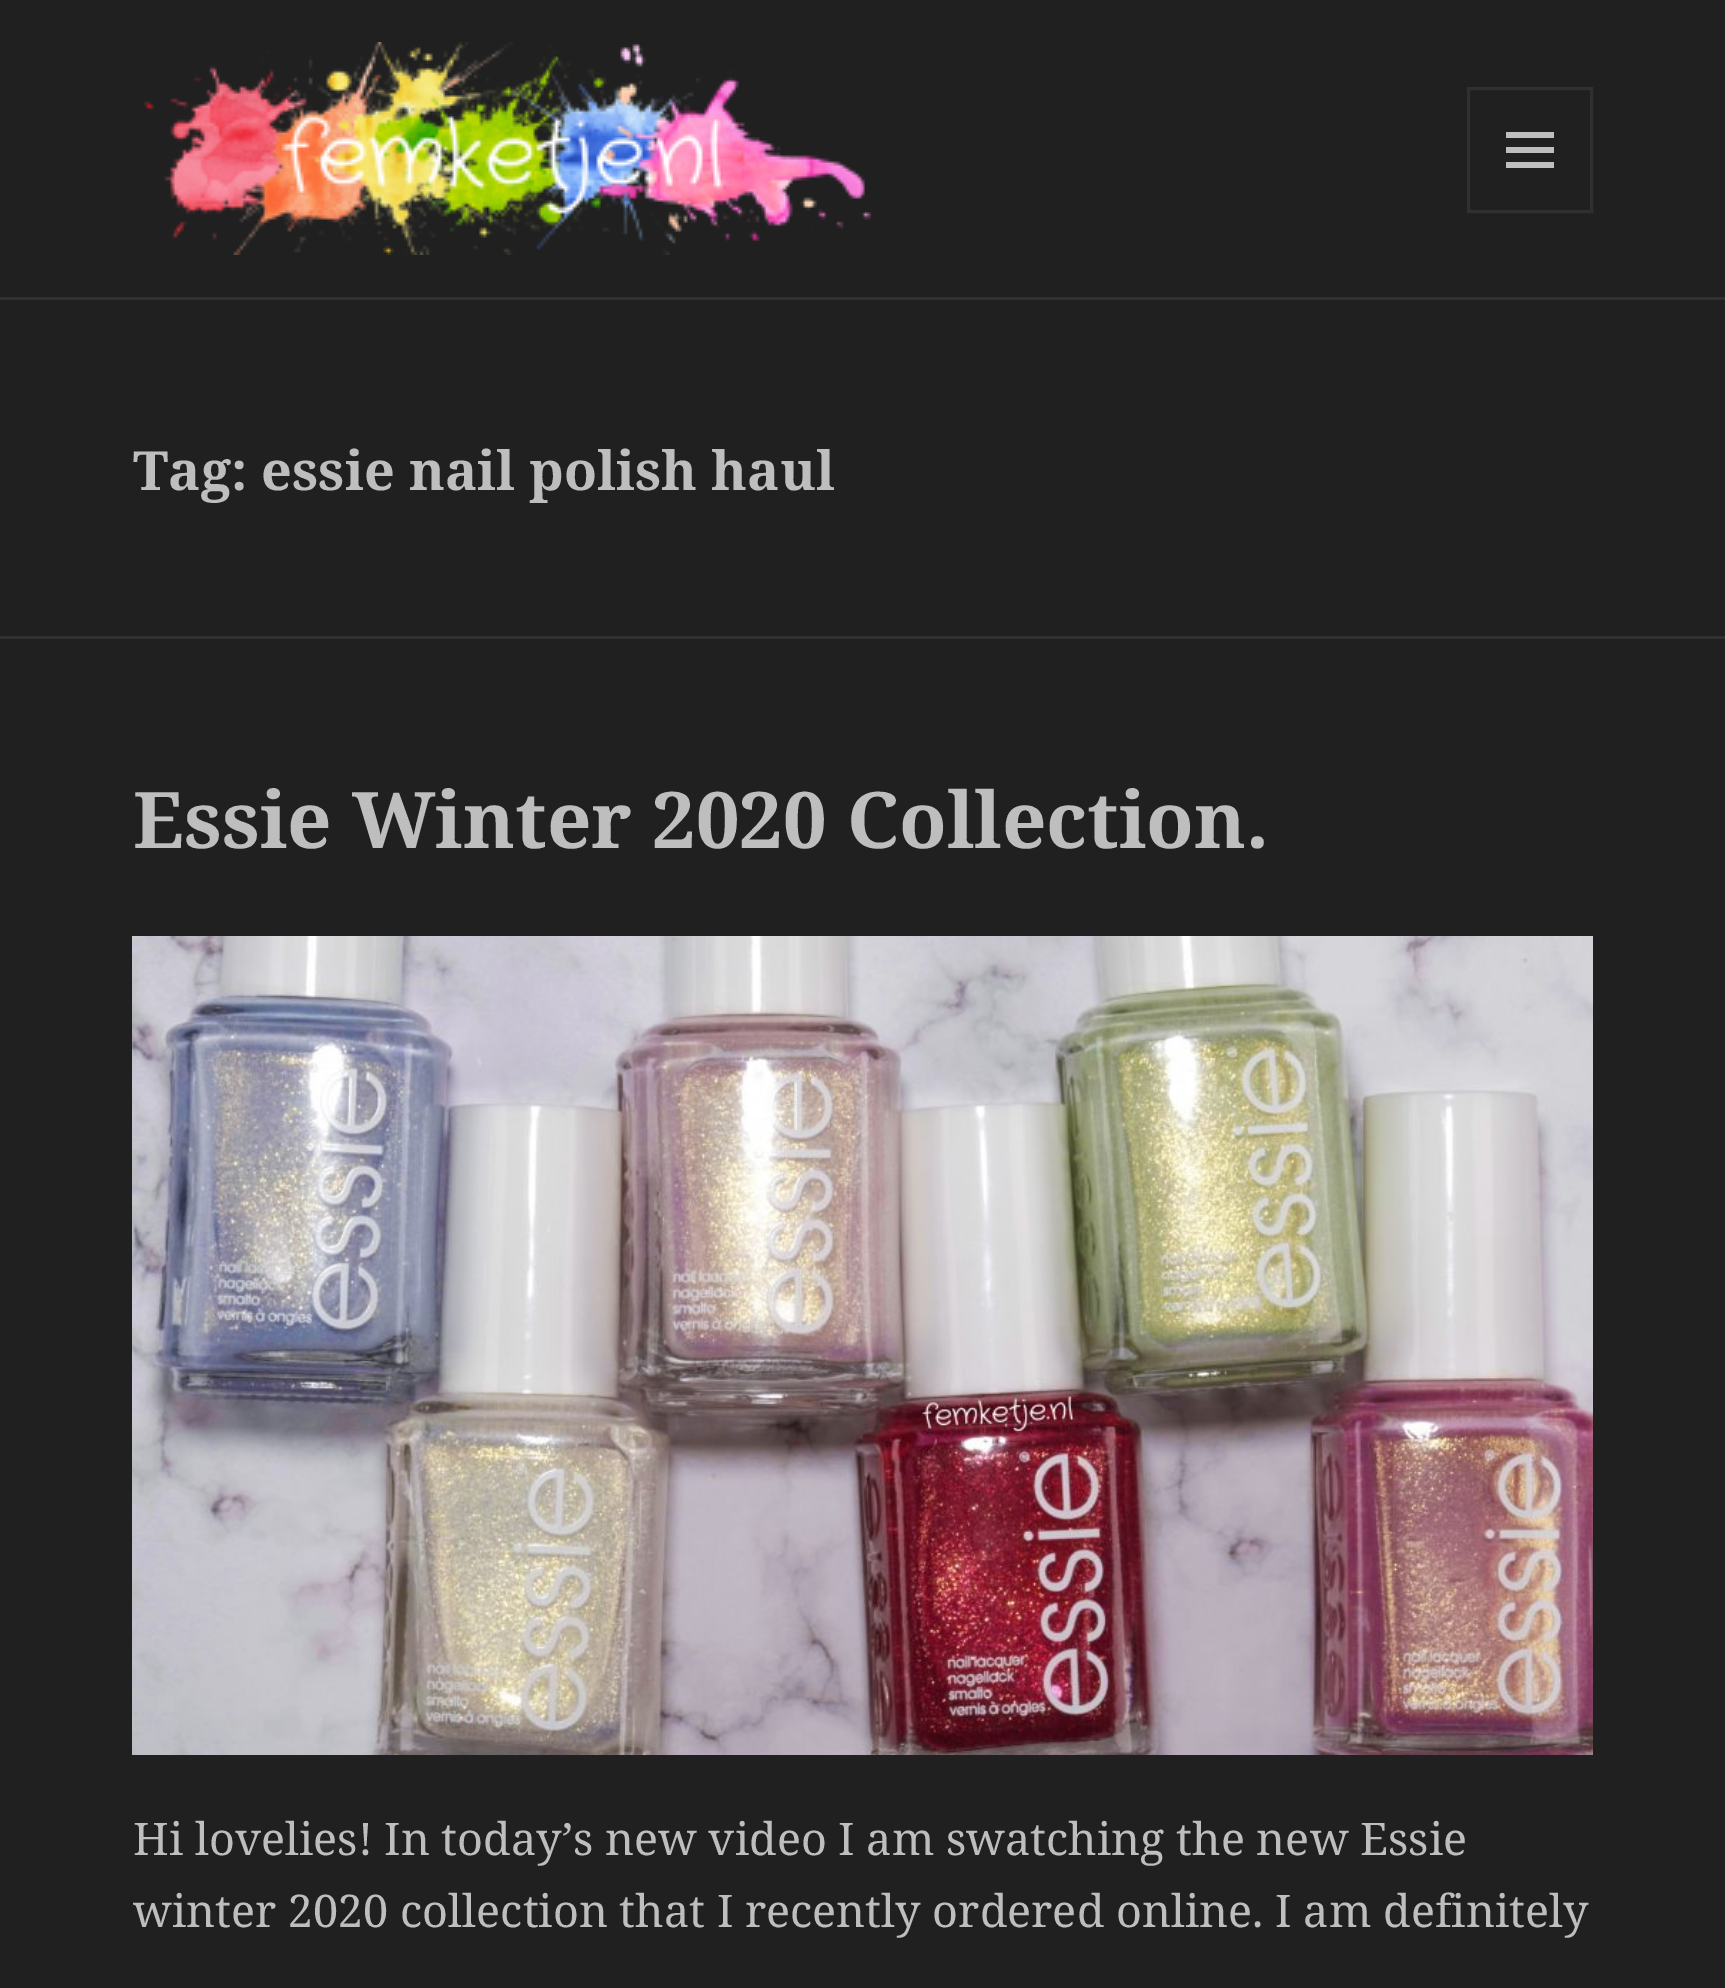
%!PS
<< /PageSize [1725 1988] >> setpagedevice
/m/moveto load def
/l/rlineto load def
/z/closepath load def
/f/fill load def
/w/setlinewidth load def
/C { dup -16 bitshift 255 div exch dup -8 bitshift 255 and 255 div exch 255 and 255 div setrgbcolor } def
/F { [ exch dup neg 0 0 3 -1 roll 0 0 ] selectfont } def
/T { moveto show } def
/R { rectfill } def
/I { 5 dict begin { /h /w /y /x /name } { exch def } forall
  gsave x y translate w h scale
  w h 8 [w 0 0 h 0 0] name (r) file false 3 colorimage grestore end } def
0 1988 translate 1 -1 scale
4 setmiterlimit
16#202020 C
0 0 1725 1988 R
16#303030 C
0 297 1725 3 R
(1.rgb) 143 42 730 213 I
3 w
1468.5 88.5 123 123 rectstroke
16#BEBEBE C
1506 168 m 0 -6 l 48 0 l 0 6 l z 1506 132 m 48 0 l 0 6 l -48 0 l z 1506 153 m 0 -6 l 48 0 l 0 6 l z f
16#303030 C
0 636 1725 3 R
/NotoSerif-Bold 54 F
16#BEBEBE C
(Tag: essie nail polish haul) 133 490 T
/NotoSerif-Bold 78 F
(Essie Winter 2020 Collection.) 133 848 T
(2.rgb) 132 936 1461 819 I
/NotoSerif-Regular 45 F
(Hi lovelies! In today’s new video I am swatching the new Essie) 133 1855 T
(winter 2020 collection that I recently ordered online. I am definitely) 133 1927 T
showpage
